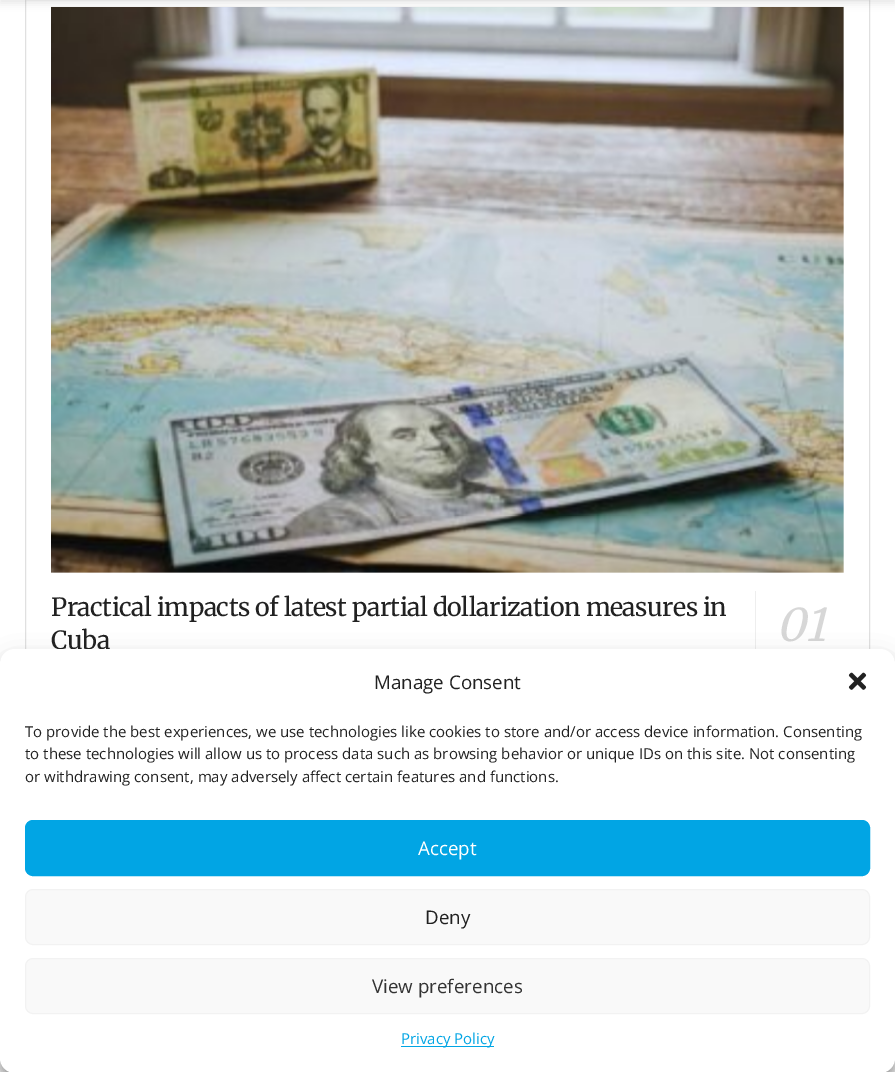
%!PS
<< /PageSize [895 1072] /PageUsesTransparency true >> setpagedevice
/m/moveto load def
/f/fill load def
/s/stroke load def
/q/gsave load def
/Q_/grestore load def
/C { dup -16 bitshift 255 div exch dup -8 bitshift 255 and 255 div exch 255 and 255 div setrgbcolor } def
/F { [ exch dup neg 0 0 3 -1 roll 0 0 ] selectfont } def
/T { moveto show } def
/R { rectfill } def
/A { dup .setfillconstantalpha .setstrokeconstantalpha } def
/Q { 5 dict begin { /r /h /w /y /x } { exch def } forall
  x r add y moveto x w add y 2 copy h add r arct x w add y h add x 1 index r arct
  x y h add x y r arct x y 2 copy exch w add exch r arct closepath end } def
/S { 12 dict begin { /a /b /q /h /w /y /x } { exch def } forall gsave /was 0 def
  9 -2 -9 { dup b mul 4 div /e exch def 1 sub .425 mul 2.718 exch exp 1 add a .99 .min exch div /now exch def
    1 1 now sub 1 was sub div sub A /was now def
    w h .min e 2 mul add 0 gt { x e sub y e sub w e 2 mul add h e 2 mul add
      q e add b .6 mul add w h .min 2 div e add .min 0 .max Q fill } if } for grestore end } def
/I { 5 dict begin { /h /w /y /x /name } { exch def } forall
  gsave x y translate w h scale
  w h 8 [w 0 0 h 0 0] name (r) file false 3 colorimage grestore end } def
0 .pushpdf14devicefilter
0 1072 translate 1 -1 scale
4 setmiterlimit
16#FFFFFF C
0 0 895 1072 R
16#E0E0E0 C
25.5 -.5 844 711 rectstroke
16#F7F7F7 C
51 6 793 567 R
(1.rgb) 51 7 793 566 I
16#000000 C
0 -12 895 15 0 4 .1 S
/Merriweather-Light 25 F
16#212121 C
51 616 m -.5 0 (Practical impacts of latest partial dollarization measures in) ashow
16#EEEEEE C
755 591 1 58 R
/Merriweather-LightItalic 45 F
16#D7D7D7 C
776 641 m -.5 0 (01) ashow
/Merriweather-Light 25 F
16#212121 C
51 649 m -.5 0 (Cuba) ashow
16#F5F5F5 C
0 1058 895 14 R
16#000000 C
0 656 895 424 15 4 .23 S
0 661 895 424 15 12.5 .19 S
16#FFFFFF C
0 649 895 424 15 Q f
/OpenSans-Regular 18.75 F
16#212121 C
(Manage Consent) 374 689 T
(2.rgb) 848 672 19 18 I
/OpenSans-Regular 15 F
(To provide the best experiences, we use technologies like cookies to store and/or access device information. Consenting) 25 737 T
(to these technologies will allow us to process data such as browsing behavior or unique IDs on this site. Not consenting) 25 759 T
(or withdrawing consent, may adversely affect certain features and functions.) 25 782 T
16#01A5E4 C
25.5 820.5 844 55 7.5 Q q f Q_
s
/OpenSans-Regular 18.75 F
16#FFFFFF C
(Accept) 418 855 T
16#F9F9F9 C
25.5 889.5 844 55 7.5 Q q f Q_
16#F2F2F2 C
s
16#212121 C
(Deny) 425 924 T
16#F9F9F9 C
25.5 958.5 844 55 7.5 Q q f Q_
16#F2F2F2 C
s
16#333333 C
(View preferences) 372 993 T
16#01A5E4 C
401 1046 93 1 R
/OpenSans-Regular 15 F
(Privacy Policy) 401 1044 T
.poppdf14devicefilter showpage
